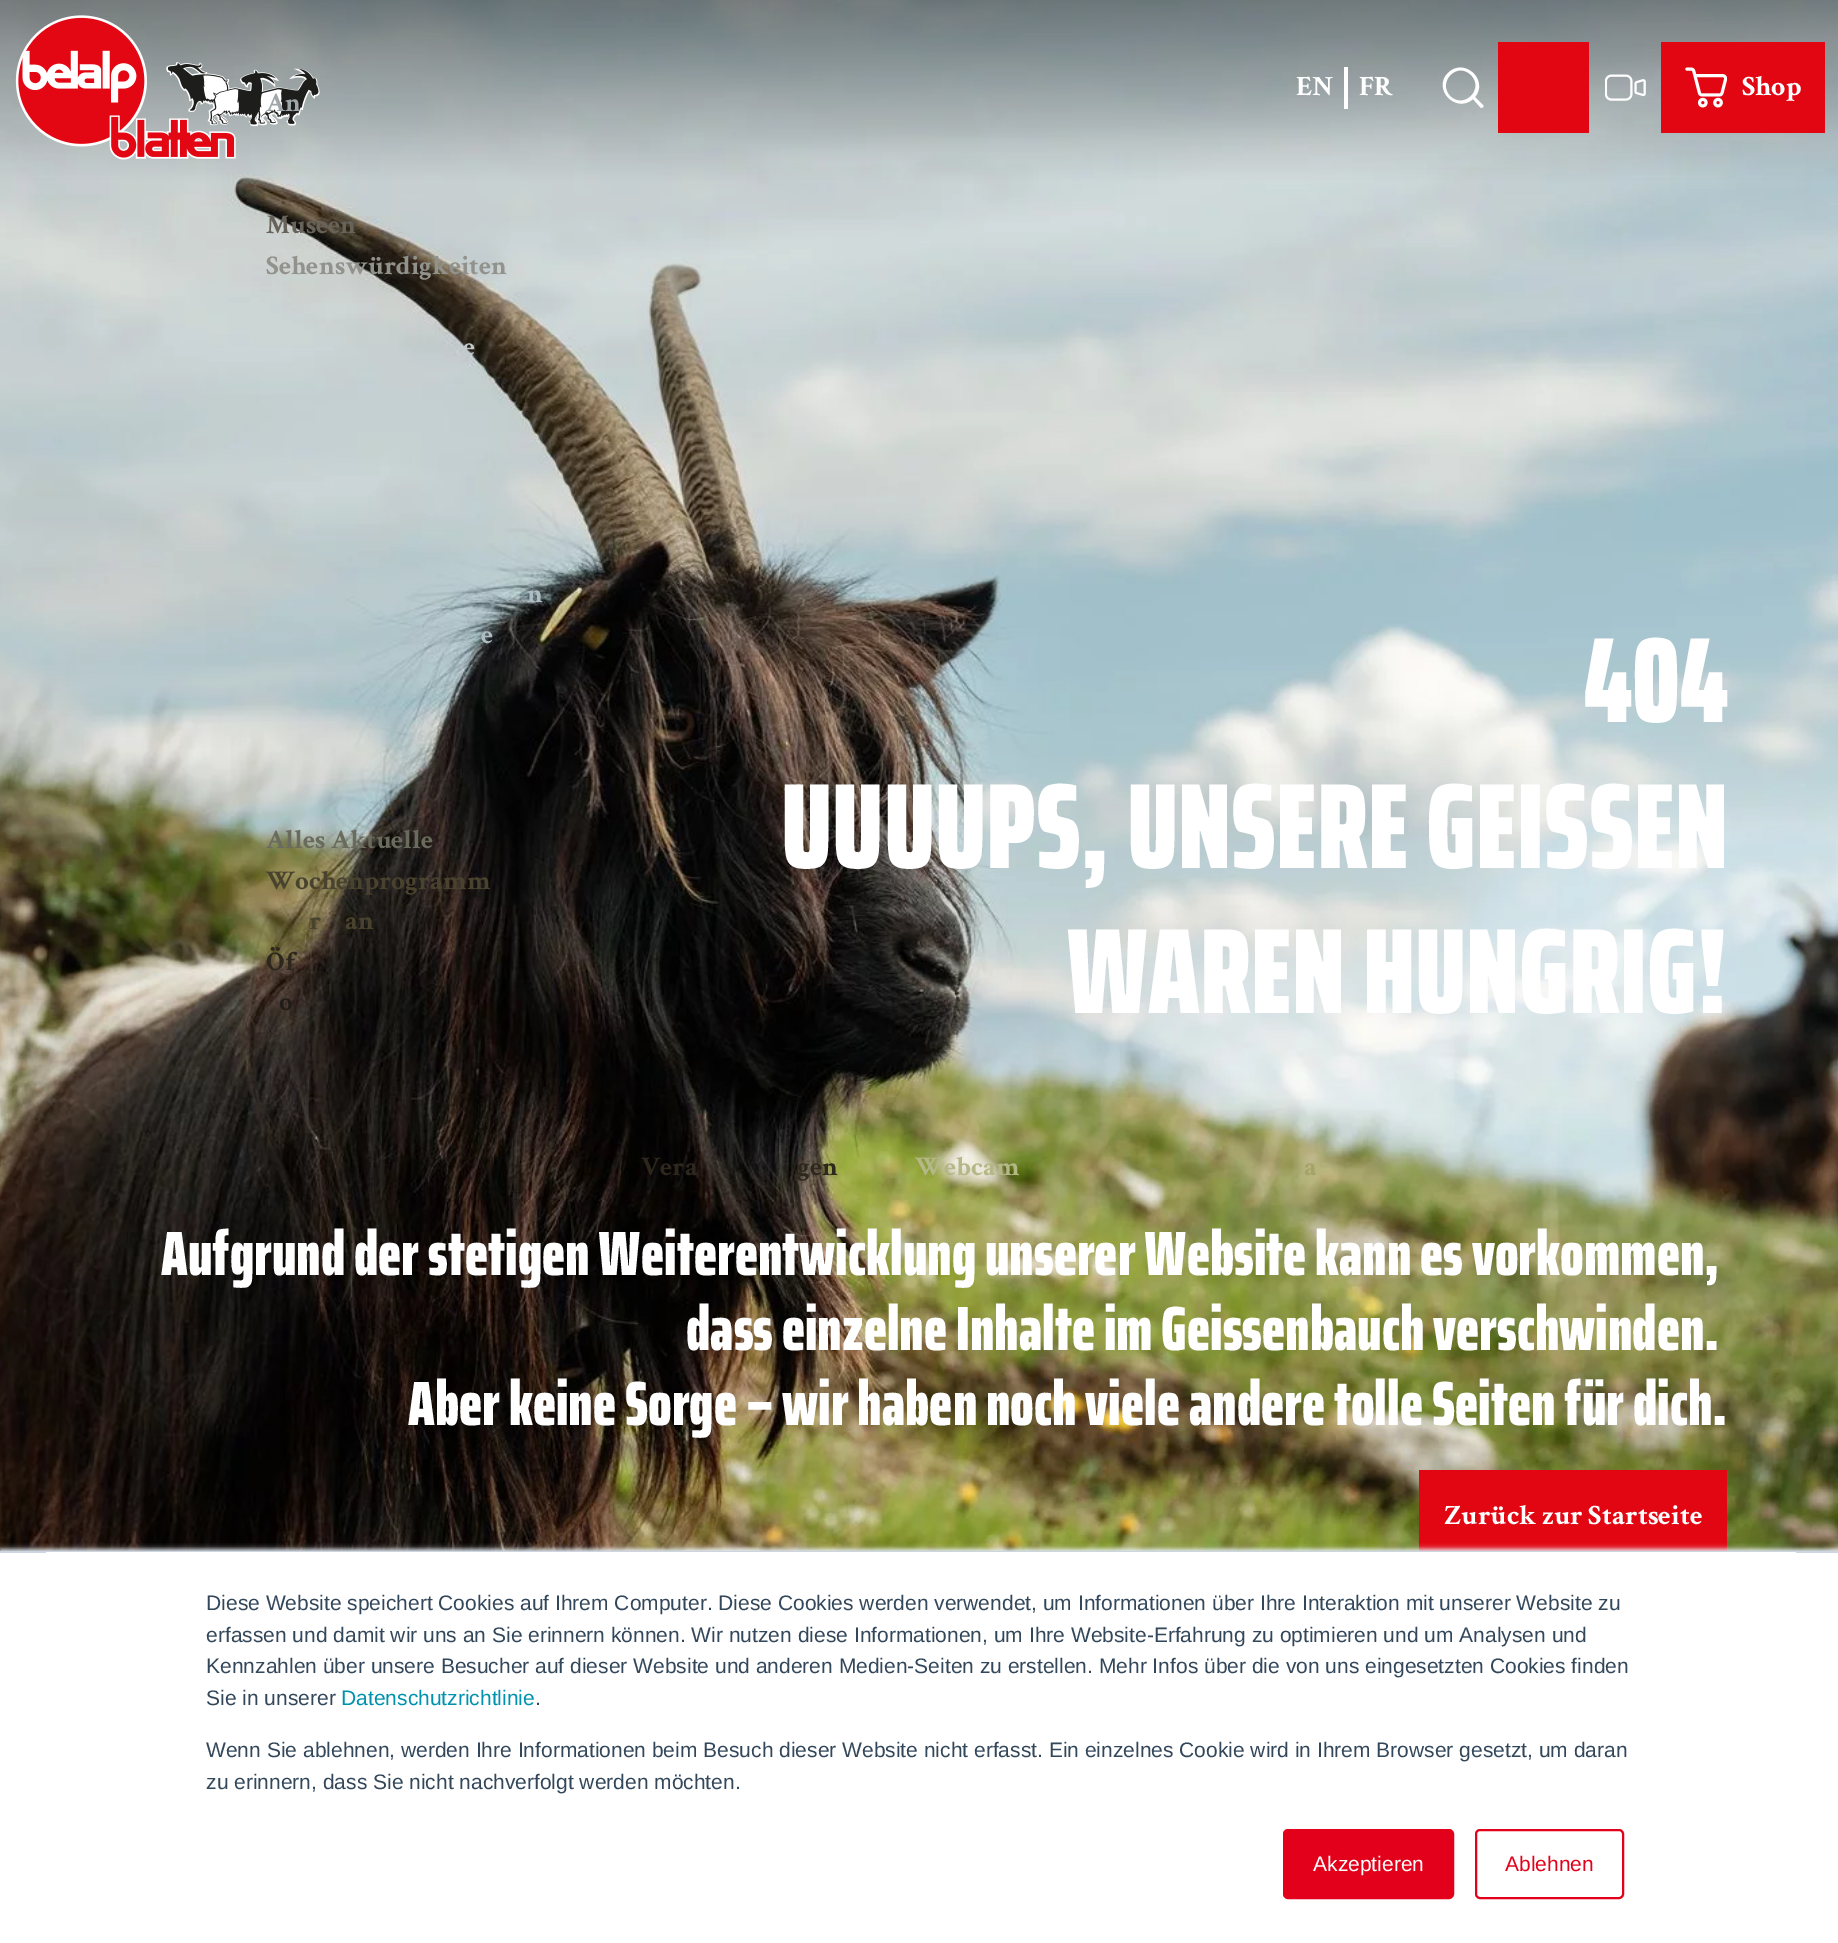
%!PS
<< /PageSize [1838 1943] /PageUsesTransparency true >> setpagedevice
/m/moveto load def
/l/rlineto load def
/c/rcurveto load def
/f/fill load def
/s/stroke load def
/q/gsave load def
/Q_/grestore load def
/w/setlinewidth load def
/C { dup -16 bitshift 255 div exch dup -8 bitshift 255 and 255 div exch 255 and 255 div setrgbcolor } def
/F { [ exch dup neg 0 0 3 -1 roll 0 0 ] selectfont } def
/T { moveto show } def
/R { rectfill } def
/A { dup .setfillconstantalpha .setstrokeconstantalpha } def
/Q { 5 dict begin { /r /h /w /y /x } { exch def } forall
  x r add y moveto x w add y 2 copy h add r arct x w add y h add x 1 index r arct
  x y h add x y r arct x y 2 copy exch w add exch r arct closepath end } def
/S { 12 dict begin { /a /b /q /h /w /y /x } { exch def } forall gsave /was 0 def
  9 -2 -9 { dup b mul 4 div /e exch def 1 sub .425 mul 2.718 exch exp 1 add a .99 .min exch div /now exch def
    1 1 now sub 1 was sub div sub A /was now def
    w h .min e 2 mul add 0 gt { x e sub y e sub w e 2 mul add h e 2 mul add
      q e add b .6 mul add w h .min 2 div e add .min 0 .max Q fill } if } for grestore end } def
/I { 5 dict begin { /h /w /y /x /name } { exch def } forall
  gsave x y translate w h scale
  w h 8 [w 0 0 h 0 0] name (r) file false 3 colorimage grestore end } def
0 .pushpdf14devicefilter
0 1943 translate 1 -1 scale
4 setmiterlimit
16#FFFFFF C
0 0 1838 1943 R
(4.rgb) 0 0 1838 1551 I
(1.rgb) 15 15 305 145 I
1344 67 4 42 R
/CrimsonText-Bold 28 F
(EN) 1296 95 T
(FR) 1359 95 T
1483 105 m -8 -8 l 14 -17 -11 -40 -27 -24 c -16 16 8 41 25 26 c 8 9 l 2 0 3 -2 2 -3 c 1450 96 m -13 -14 7 -35 21 -21 c 14 14 -7 35 -21 21 c f
16#E20613 C
1498 42 91 91 R
(2.rgb) 1605 74 41 27 I
1661 42 164 91 R
(3.rgb) 1685 67 42 41 I
16#FFFFFF C
(Shop) 1742 95 T
/CrimsonText-Bold 27 F
16#9FA7A8 C
(An) 266 111 T
16#67635A C
(Museen) 266 233 T
16#92928D C
(Sehenswürdigkeiten) 266 274 T
16#C2CACB C
(e) 463 355 T
16#ADBDC1 C
(n) 527 602 T
(e) 481 643 T
16#696B5D C
(Alles Aktuelle) 266 848 T
16#49422F C
(Wochenprogramm) 266 889 T
(r) 309 929 T
(an) 345 929 T
16#2E271E C
(Öf) 266 970 T
16#211C18 C
(o) 279 1010 T
16#2E271E C
(Vera) 641 1175 T
(gen) 797 1175 T
16#B4B887 C
(Webcam) 915 1175 T
16#A4A469 C
(a) 1304 1175 T
/SairaExtraCondensed-Black 121.5 F
16#FFFFFF C
(404) 1584 722 T
(UUUUPS, UNSERE GEISSEN) 781 868 T
(WAREN HUNGRIG!) 1066 1013 T
/SairaExtraCondensed-Black 62.6 F
(Aufgrund der stetigen Weiterentwicklung unserer Website kann es vorkommen,) 161 1275 T
(dass einzelne Inhalte im Geissenbauch verschwinden.) 686 1350 T
(Aber keine Sorge – wir haben noch viele andere tolle Seiten für dich.) 408 1425 T
16#E20613 C
1419 1470 308 81 R
/CrimsonText-Bold 28 F
16#FFFFFF C
(Zurück zur Startseite) 1444 1524 T
16#EAF0F6 C
0 1549 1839 394 0 2.5 1 S
16#FFFFFF C
0 1553 1838 390 R
16#CBD6E2 C
0 1551 1838 2 R
16#FFFFFF C
46 1552 1750 1 R
/LiberationSans-Regular 21 F
16#33475B C
(Diese Website speichert Cookies auf Ihrem Computer. Diese Cookies werden verwendet, um Informationen über Ihre Interaktion mit unserer Website zu) 206 1610 T
(erfassen und damit wir uns an Sie erinnern können. Wir nutzen diese Informationen, um Ihre Website-Erfahrung zu optimieren und um Analysen und) 206 1642 T
(Kennzahlen über unsere Besucher auf dieser Website und anderen Medien-Seiten zu erstellen. Mehr Infos über die von uns eingesetzten Cookies finden) 206 1673 T
(Sie in unserer) 206 1705 T
16#0091AE C
(Datenschutzrichtlinie) 341 1705 T
16#33475B C
(.) 535 1705 T
(Wenn Sie ablehnen, werden Ihre Informationen beim Besuch dieser Website nicht erfasst. Ein einzelnes Cookie wird in Ihrem Browser gesetzt, um daran) 206 1757 T
(zu erinnern, dass Sie nicht nachverfolgt werden möchten.) 206 1789 T
16#E2001A C
1284 1830 169 68 4 Q q f Q_
2 w
s
16#FFFFFF C
(Akzeptieren) 1313 1871 T
16#E2001A C
1476 1830 147 68 4 Q s
(Ablehnen) 1505 1871 T
.poppdf14devicefilter showpage
